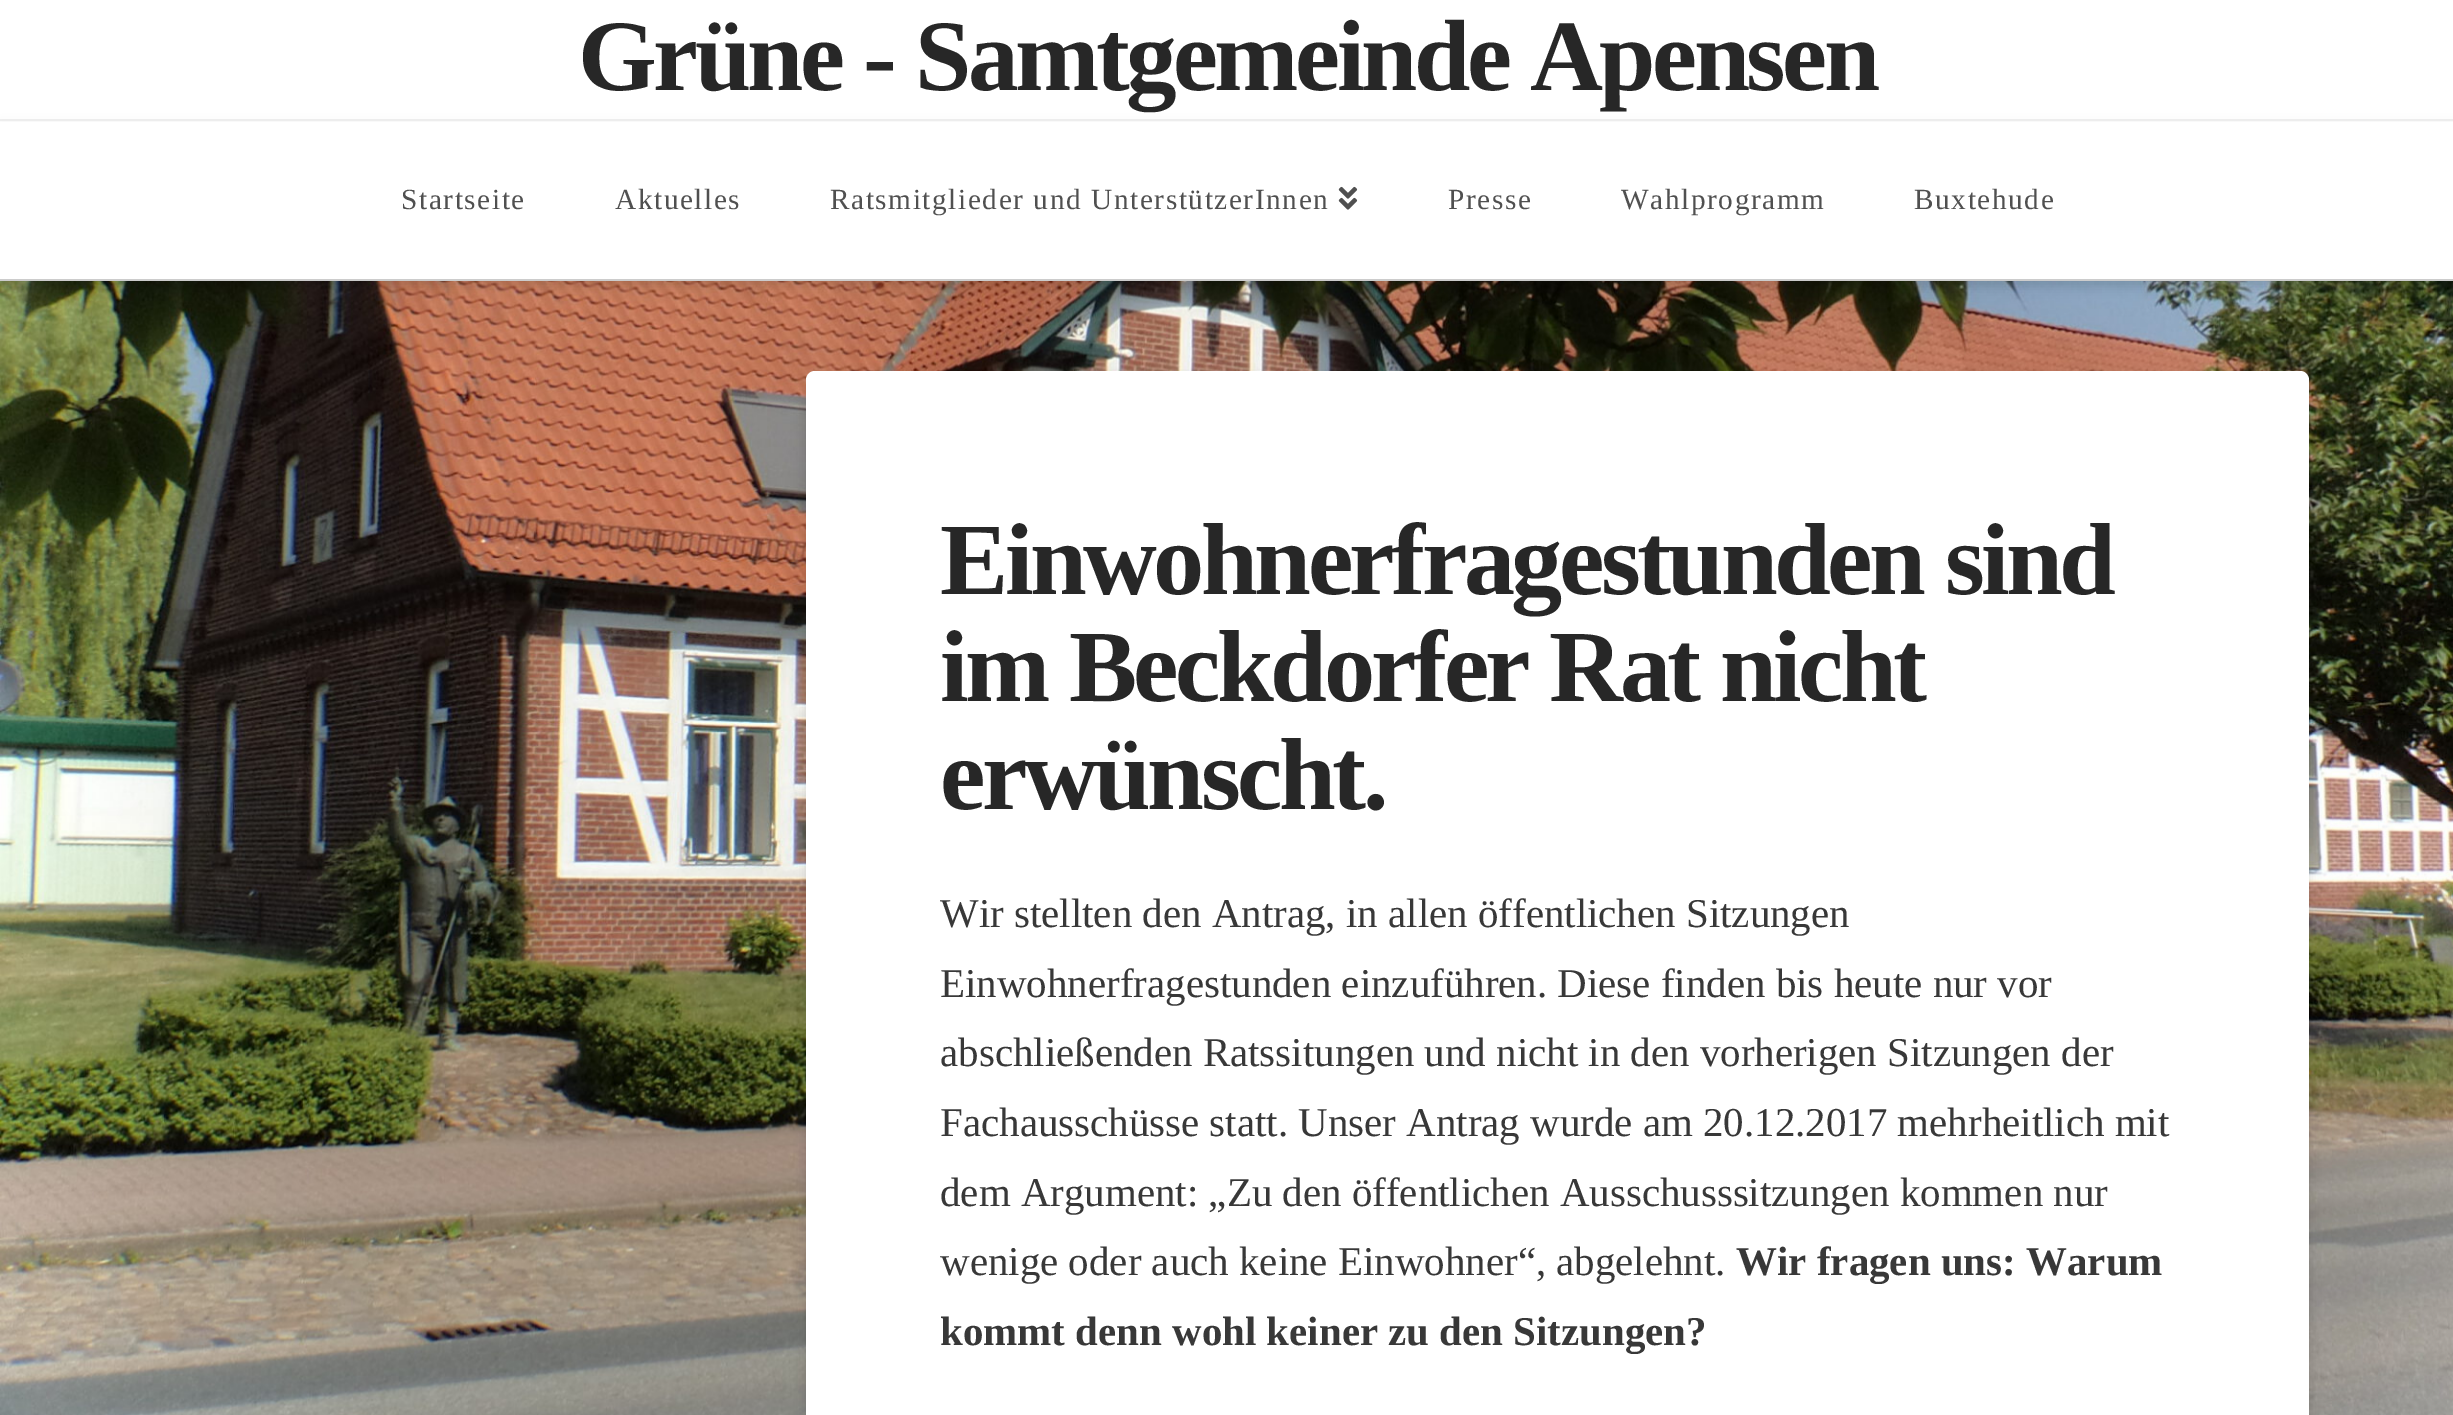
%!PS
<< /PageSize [2453 1415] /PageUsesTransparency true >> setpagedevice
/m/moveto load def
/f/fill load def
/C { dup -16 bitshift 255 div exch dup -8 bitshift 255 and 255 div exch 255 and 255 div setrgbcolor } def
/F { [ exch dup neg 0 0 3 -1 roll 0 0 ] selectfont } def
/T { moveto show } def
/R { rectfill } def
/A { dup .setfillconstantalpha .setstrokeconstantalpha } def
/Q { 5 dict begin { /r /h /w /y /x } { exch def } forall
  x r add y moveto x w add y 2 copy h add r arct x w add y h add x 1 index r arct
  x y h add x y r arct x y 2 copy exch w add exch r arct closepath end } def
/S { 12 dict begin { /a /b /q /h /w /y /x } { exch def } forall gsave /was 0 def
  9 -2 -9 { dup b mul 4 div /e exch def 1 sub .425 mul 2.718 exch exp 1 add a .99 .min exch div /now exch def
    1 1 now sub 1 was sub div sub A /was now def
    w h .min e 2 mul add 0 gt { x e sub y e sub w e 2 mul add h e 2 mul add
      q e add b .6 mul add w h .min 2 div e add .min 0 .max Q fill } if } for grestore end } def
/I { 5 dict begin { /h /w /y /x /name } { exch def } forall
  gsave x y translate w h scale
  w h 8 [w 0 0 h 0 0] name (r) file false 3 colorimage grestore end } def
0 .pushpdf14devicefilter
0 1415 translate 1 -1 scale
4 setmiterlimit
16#FFFFFF C
0 0 2453 1415 R
16#F2F2F2 C
0 119 2453 2 R
/LiberationSerif-Bold 101.25 F
16#272727 C
578 90 m -3.55 0 (Grüne - Samtgemeinde Apensen) ashow
(2.rgb) 0 281 2453 1134 I
16#000000 C
0 126 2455 160 0 5.5 .13 S
16#FFFFFF C
0 122 2453 157 R
16#CCCCCC C
0 279 2453 2 R
/LiberationSerif-Regular 29.25 F
16#505050 C
401 209 m 1.6 0 (Startseite) ashow
615 209 m 1.6 0 (Aktuelles) ashow
830 209 m 1.6 0 (Ratsmitglieder und UnterstützerInnen) ashow
(1.rgb) 1338 186 20 24 I
1448 209 m 1.6 0 (Presse) ashow
1621 209 m 1.6 0 (Wahlprogramm) ashow
1914 209 m 1.6 0 (Buxtehude) ashow
16#000000 C
806 376 1503 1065 9 5.5 .13 S
16#FFFFFF C
806 371 1503 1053 9 Q f
/LiberationSerif-Bold 102.4 F
16#272727 C
940 594 m -3.6 0 (Einwohnerfragestunden sind) ashow
940 701 m -3.6 0 (im Beckdorfer Rat nicht) ashow
940 809 m -3.6 0 (erwünscht.) ashow
/LiberationSerif-Regular 40.95 F
16#383838 C
(Wir stellten den Antrag, in allen öffentlichen Sitzungen) 940 927 T
(Einwohnerfragestunden einzuführen. Diese finden bis heute nur vor) 940 997 T
(abschließenden Ratssitungen und nicht in den vorherigen Sitzungen der) 940 1066 T
(Fachausschüsse statt. Unser Antrag wurde am 20.12.2017 mehrheitlich mit) 940 1136 T
(dem Argument: „Zu den öffentlichen Ausschusssitzungen kommen nur) 940 1206 T
(wenige oder auch keine Einwohner“, abgelehnt.) 940 1275 T
/LiberationSerif-Bold 40.95 F
(Wir fragen uns: Warum) 1736 1275 T
(kommt denn wohl keiner zu den Sitzungen?) 940 1345 T
.poppdf14devicefilter showpage
